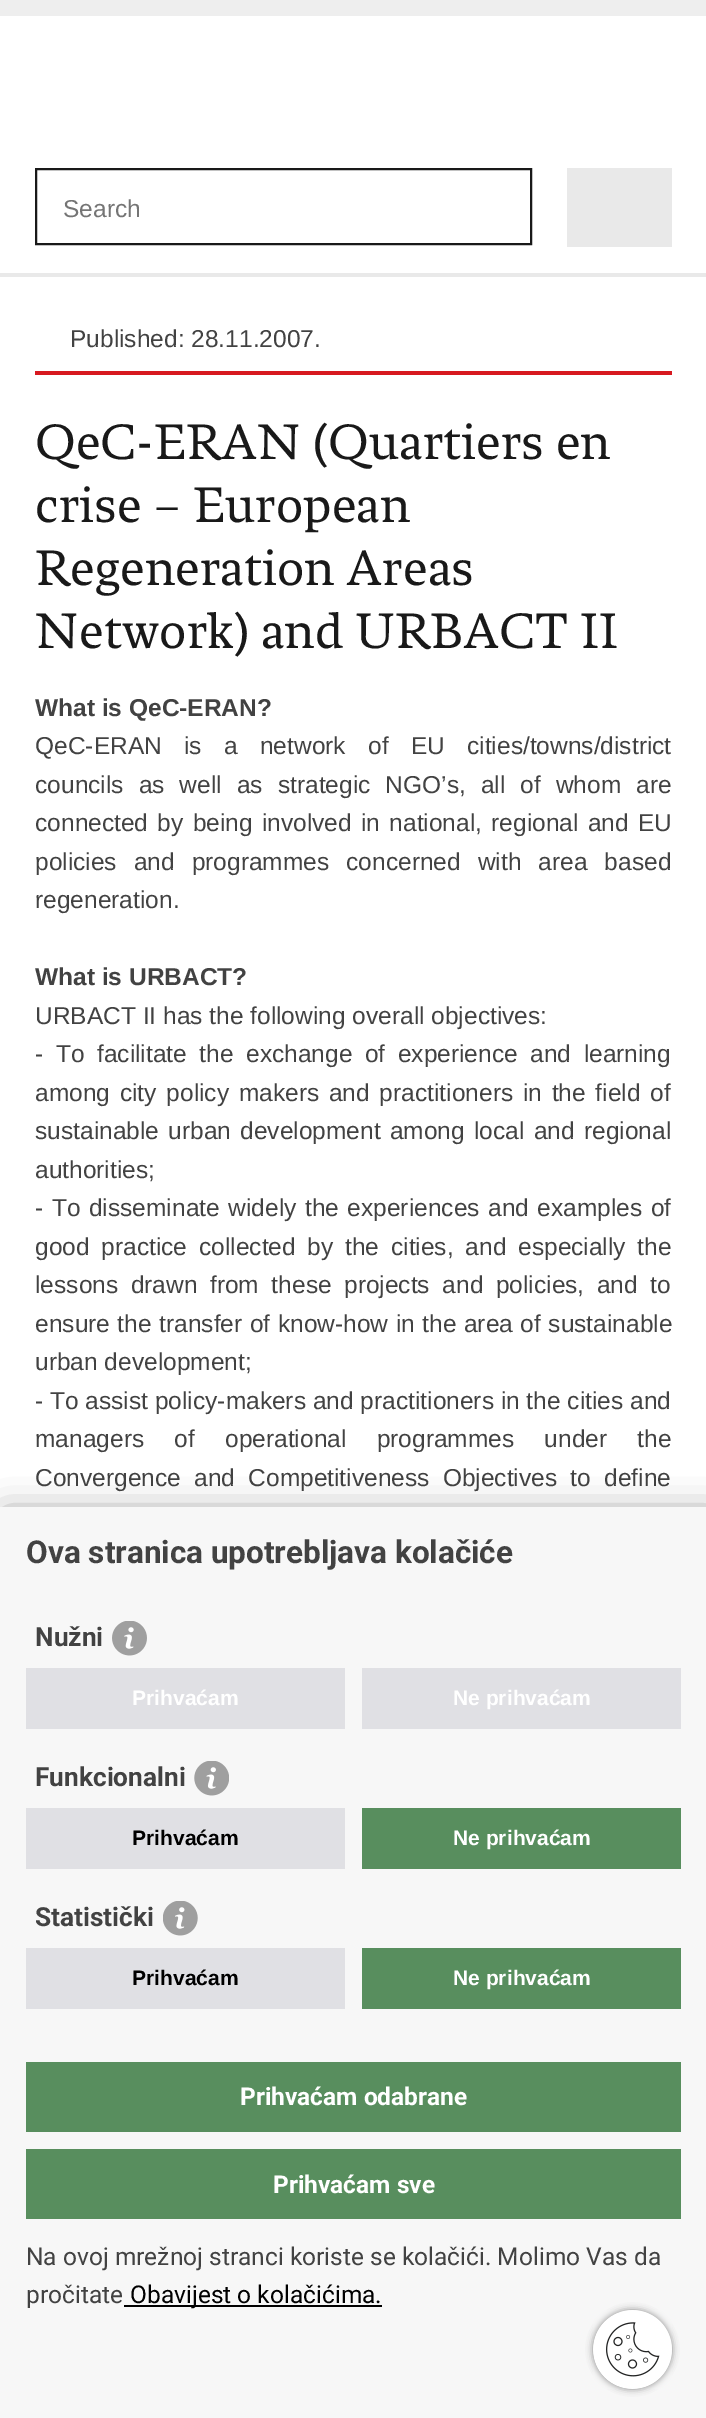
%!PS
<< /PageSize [706 2418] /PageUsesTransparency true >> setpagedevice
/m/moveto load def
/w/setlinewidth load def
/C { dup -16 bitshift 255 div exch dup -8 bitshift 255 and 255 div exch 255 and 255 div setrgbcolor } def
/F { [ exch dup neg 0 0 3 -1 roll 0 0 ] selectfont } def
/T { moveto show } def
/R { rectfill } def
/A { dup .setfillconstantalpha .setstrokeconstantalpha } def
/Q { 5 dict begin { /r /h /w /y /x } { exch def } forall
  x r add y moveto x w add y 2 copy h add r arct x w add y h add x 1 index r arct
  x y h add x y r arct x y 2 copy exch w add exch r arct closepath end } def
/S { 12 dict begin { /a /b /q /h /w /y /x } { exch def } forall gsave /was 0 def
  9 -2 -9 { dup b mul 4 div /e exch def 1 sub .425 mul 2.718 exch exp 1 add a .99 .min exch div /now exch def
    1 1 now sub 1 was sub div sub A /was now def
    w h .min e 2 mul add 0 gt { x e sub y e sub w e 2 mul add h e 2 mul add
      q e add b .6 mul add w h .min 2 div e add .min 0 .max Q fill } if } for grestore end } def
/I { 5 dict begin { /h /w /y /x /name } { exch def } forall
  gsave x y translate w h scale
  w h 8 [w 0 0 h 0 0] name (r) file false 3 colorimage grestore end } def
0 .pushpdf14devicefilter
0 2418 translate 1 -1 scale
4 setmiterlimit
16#FFFFFF C
0 0 706 2418 R
16#E9E9E9 C
0 273 706 4 R
16#EEEEEE C
0 0 706 16 R
16#191919 C
2 w
36 169 495 75 rectstroke
/LiberationSans-Regular 24.5 F
16#757575 C
(Search) 63 217 T
16#E9E9E9 C
567 168 105 79 R
16#D71920 C
35 371 637 4 R
16#424242 C
(Published: 28.11.2007.) 70 347 T
/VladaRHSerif-Regular 52.5 F
16#191919 C
(QeC-ERAN \(Quartiers en) 35 459 T
(crise – European) 35 522 T
(Regeneration Areas) 35 585 T
(Network\) and URBACT II) 35 648 T
/LiberationSans-Bold 24.5 F
16#424242 C
(What is QeC-ERAN?) 35 716 T
/LiberationSans-Regular 24.5 F
35 754 m 15.5 0 32 (QeC-ERAN is a network of EU cities/towns/district) widthshow
35 793 m 8.25 0 32 (councils as well as strategic NGO’s, all of whom are) widthshow
35 831 m 2.5 0 32 (connected by being involved in national, regional and EU) widthshow
35 870 m 10.25 0 32 (policies and programmes concerned with area based) widthshow
(regeneration.) 35 908 T
/LiberationSans-Bold 24.5 F
(What is URBACT?) 35 985 T
/LiberationSans-Regular 24.5 F
(URBACT II has the following overall objectives:) 35 1024 T
35 1062 m 5.75 0 32 (- To facilitate the exchange of experience and learning) widthshow
35 1101 m 3 0 32 (among city policy makers and practitioners in the field of) widthshow
35 1139 m 2.5 0 32 (sustainable urban development among local and regional) widthshow
(authorities;) 35 1178 T
35 1216 m 1.75 0 32 (- To disseminate widely the experiences and examples of) widthshow
35 1255 m 5 0 32 (good practice collected by the cities, and especially the) widthshow
35 1293 m 5.75 0 32 (lessons drawn from these projects and policies, and to) widthshow
35 1332 m .75 0 32 (ensure the transfer of know-how in the area of sustainable) widthshow
(urban development;) 35 1370 T
(- To assist policy-makers and practitioners in the cities and) 35 1409 T
35 1447 m 23.5 0 32 (managers of operational programmes under the) widthshow
35 1486 m 6.5 0 32 (Convergence and Competitiveness Objectives to define) widthshow
16#000000 C
5 1516 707 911 0 17.5 .5 S
16#F7F7F7 C
0 1507 706 911 R
/Roboto-Bold 31.5 F
16#424242 C
(Ova stranica upotrebljava kolačiće) 26 1563 T
/Roboto-Bold 26.25 F
(Nužni) 35 1646 T
(1.rgb) 112 1621 35 35 I
16#E0E0E4 C
26 1668 319 61 R
/LiberationSans-Bold 21 F
16#FFFFFF C
(Prihvaćam) 132 1705 T
16#E0E0E4 C
362 1668 319 61 R
16#FFFFFF C
(Ne prihvaćam) 453 1705 T
/Roboto-Bold 26.25 F
16#424242 C
(Funkcionalni) 35 1786 T
(2.rgb) 194 1761 35 35 I
16#E0E0E4 C
26 1808 319 61 R
/LiberationSans-Bold 21 F
16#000000 C
(Prihvaćam) 132 1845 T
16#588E5E C
362 1808 319 61 R
16#FFFFFF C
(Ne prihvaćam) 453 1845 T
/Roboto-Bold 26.25 F
16#424242 C
(Statistički) 35 1926 T
(3.rgb) 163 1901 35 35 I
16#E0E0E4 C
26 1948 319 61 R
/LiberationSans-Bold 21 F
16#000000 C
(Prihvaćam) 132 1985 T
16#588E5E C
362 1948 319 61 R
16#FFFFFF C
(Ne prihvaćam) 453 1985 T
16#588E5E C
26 2062 655 70 R
/Roboto-Bold 24.5 F
16#FFFFFF C
(Prihvaćam odabrane) 240 2105 T
16#588E5E C
26 2149 655 70 R
16#FFFFFF C
(Prihvaćam sve) 273 2193 T
/Roboto-Regular 24.5 F
16#424242 C
(Na ovoj mrežnoj stranci koriste se kolačići. Molimo Vas da) 26 2265 T
(pročitate) 26 2303 T
16#000000 C
124 2305 258 2 R
(Obavijest o kolačićima.) 130 2303 T
16#858585 C
593 2310 79 79 39.5 3.5 1 S
(4.rgb) 593 2310 79 79 I
.poppdf14devicefilter showpage
